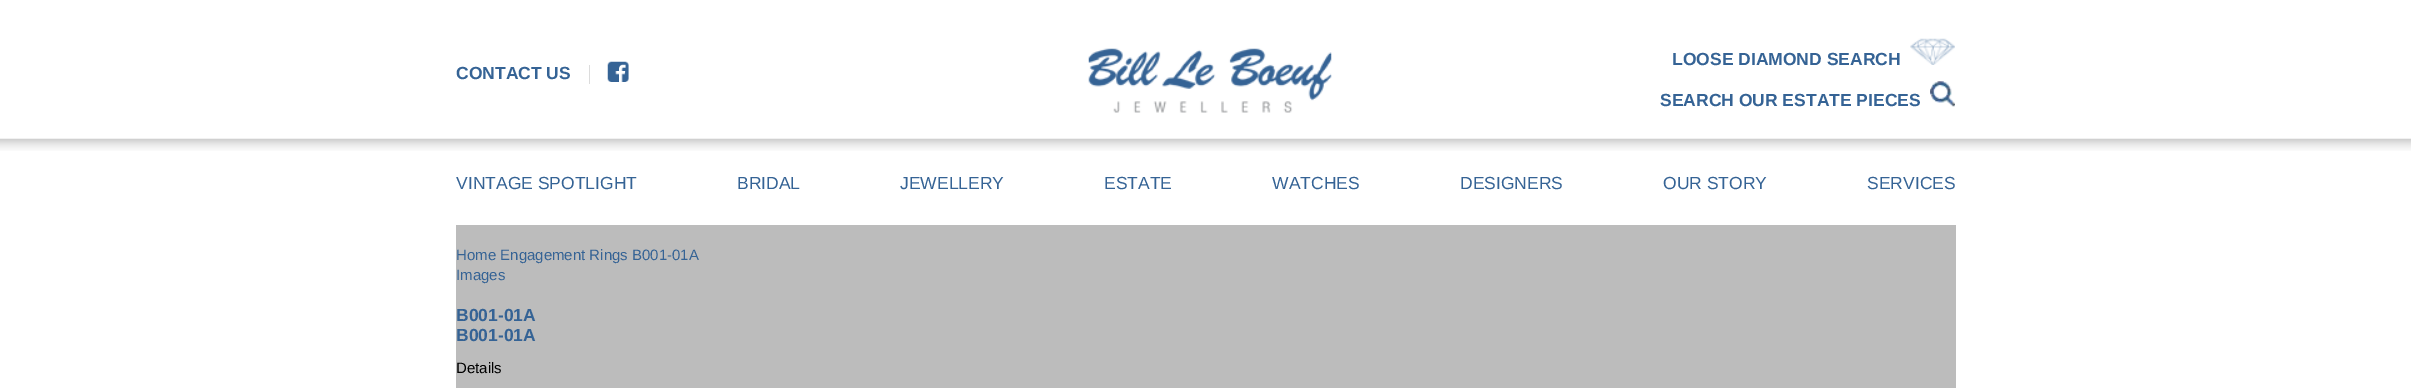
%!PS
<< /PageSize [2411 388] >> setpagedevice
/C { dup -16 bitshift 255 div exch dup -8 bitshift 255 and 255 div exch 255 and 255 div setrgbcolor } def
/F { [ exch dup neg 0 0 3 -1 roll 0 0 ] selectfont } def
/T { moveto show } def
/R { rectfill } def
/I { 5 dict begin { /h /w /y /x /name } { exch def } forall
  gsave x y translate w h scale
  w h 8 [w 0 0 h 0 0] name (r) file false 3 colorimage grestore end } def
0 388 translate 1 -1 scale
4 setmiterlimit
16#FFFFFF C
0 0 2411 388 R
(1.rgb) 0 138 2411 13 I
/LiberationSans-Bold 17.5 F
16#356395 C
(CONTACT US) 456 79 T
16#DCDCDC C
589 65 1 19 R
(2.rgb) 607 61 22 21 I
(3.rgb) 1088 48 244 65 I
16#356395 C
(LOOSE DIAMOND SEARCH) 1672 65 T
(4.rgb) 1910 38 45 27 I
(SEARCH OUR ESTATE PIECES) 1660 106 T
(5.rgb) 1930 81 25 26 I
/LiberationSans-Regular 17.5 F
(VINTAGE SPOTLIGHT) 456 189 T
(BRIDAL) 737 189 T
(JEWELLERY) 900 189 T
(ESTATE) 1104 189 T
(WATCHES) 1272 189 T
(DESIGNERS) 1460 189 T
(OUR STORY) 1663 189 T
(SERVICES) 1867 189 T
16#BCBCBC C
456 225 1500 163 R
/LiberationSans-Regular 15 F
16#356395 C
(Home Engagement Rings B001-01A) 456 260 T
(Images) 456 280 T
/LiberationSans-Bold 17.5 F
(B001-01A) 456 321 T
(B001-01A) 456 341 T
/LiberationSans-Regular 15 F
16#000000 C
(Details) 456 373 T
showpage
